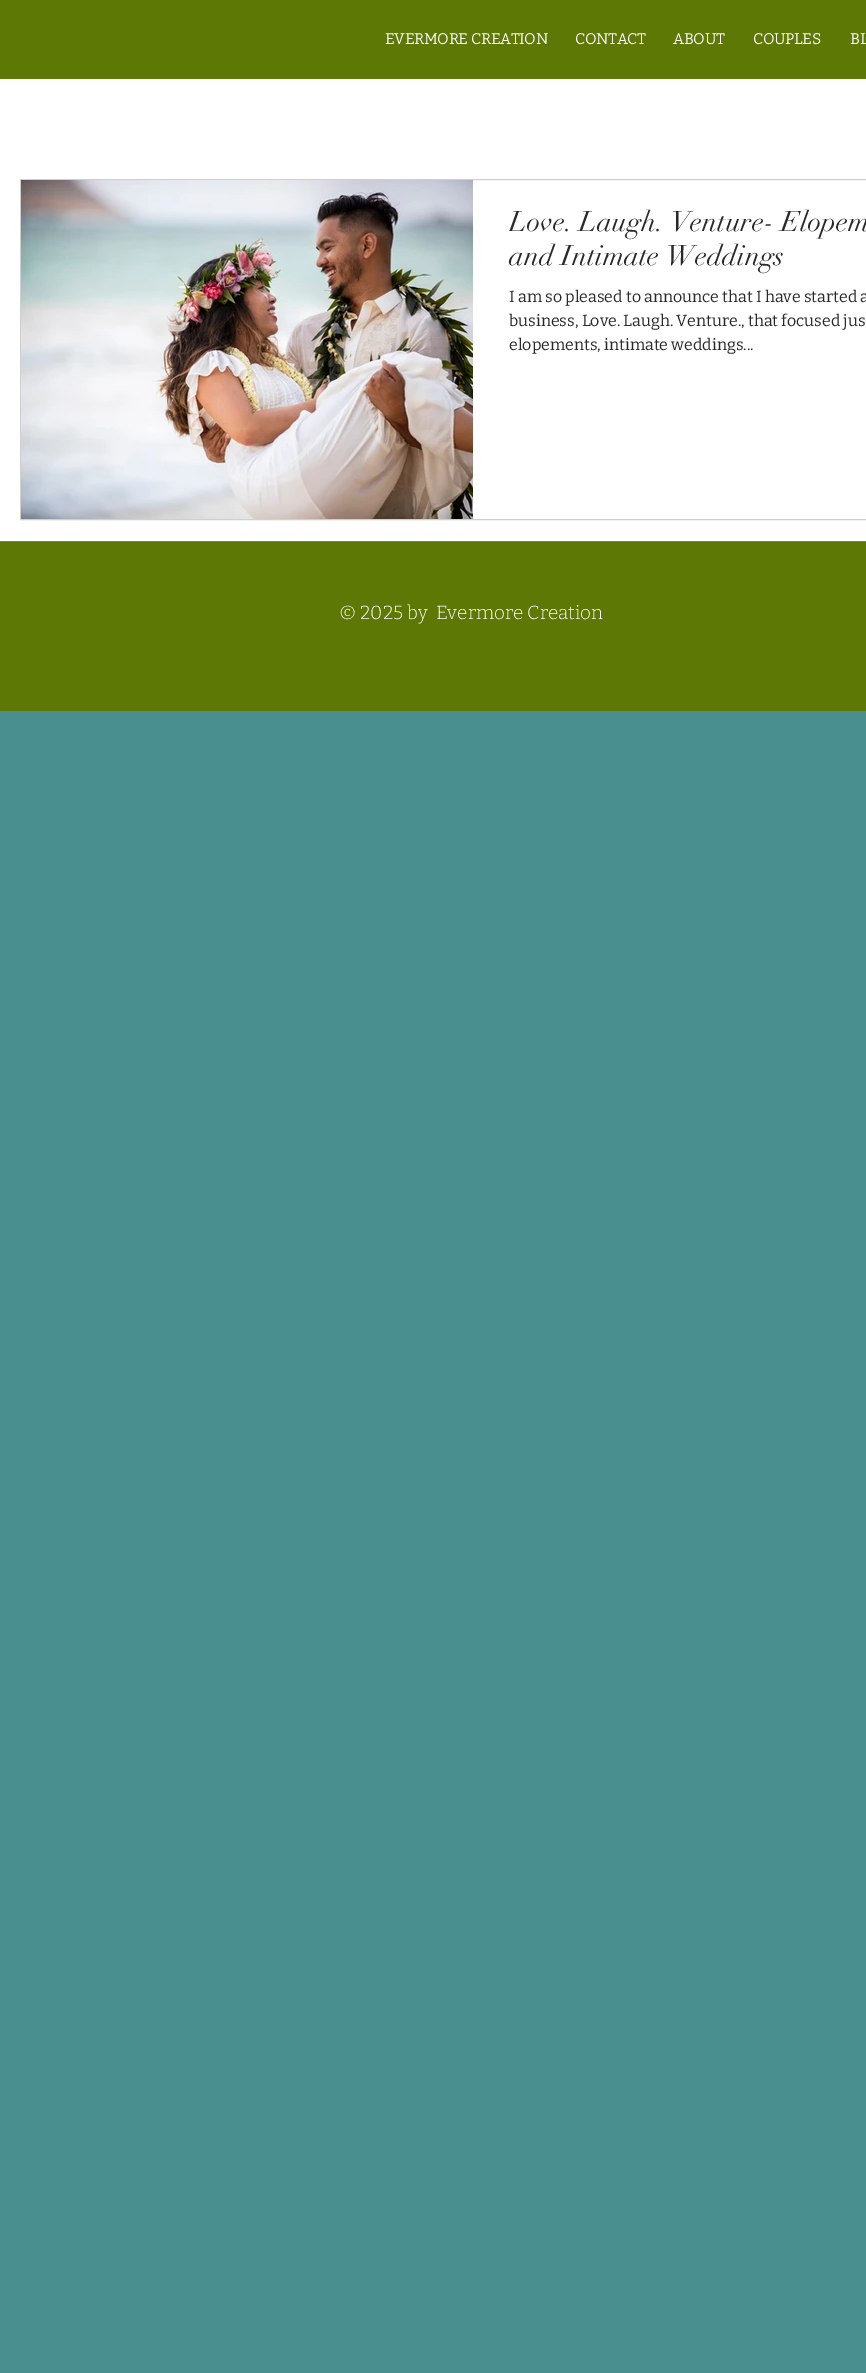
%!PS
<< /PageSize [866 2373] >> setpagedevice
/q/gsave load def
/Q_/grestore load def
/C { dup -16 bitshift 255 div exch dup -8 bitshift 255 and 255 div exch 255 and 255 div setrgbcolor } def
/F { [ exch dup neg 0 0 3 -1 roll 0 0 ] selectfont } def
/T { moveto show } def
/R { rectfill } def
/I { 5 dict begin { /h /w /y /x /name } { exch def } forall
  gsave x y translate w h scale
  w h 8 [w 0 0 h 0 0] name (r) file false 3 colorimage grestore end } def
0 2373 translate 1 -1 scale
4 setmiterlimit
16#4A8F8F C
0 0 866 2373 R
16#5D7805 C
0 0 866 79 R
/Bitter-Bold 15 F
16#FFFFFF C
(EVERMORE CREATION) 385 44 T
(CONTACT) 575 44 T
(ABOUT) 673 44 T
(COUPLES) 753 44 T
(BL) 850 44 T
0 79 866 462 R
16#CFCFCF C
20.5 179.5 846 340 rectstroke
(1.rgb) 21 180 452 339 I
q
509 205 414 68 rectclip
/didot-Regular 28 F
16#292929 C
(Love. Laugh. Venture- Elopem) 509 231 T
Q_
/didot-Regular 28 F
16#292929 C
(and Intimate Weddings) 509 265 T
/Bitter-Regular 16 F
(I am so pleased to announce that I have started a) 509 302 T
(business, Love. Laugh. Venture., that focused jus) 509 326 T
(elopements, intimate weddings...) 509 350 T
16#5D7805 C
0 542 866 169 R
/Bitter-Thin 19 F
16#FFFFFF C
(© 2025 by  Evermore Creation) 339 619 T
showpage
